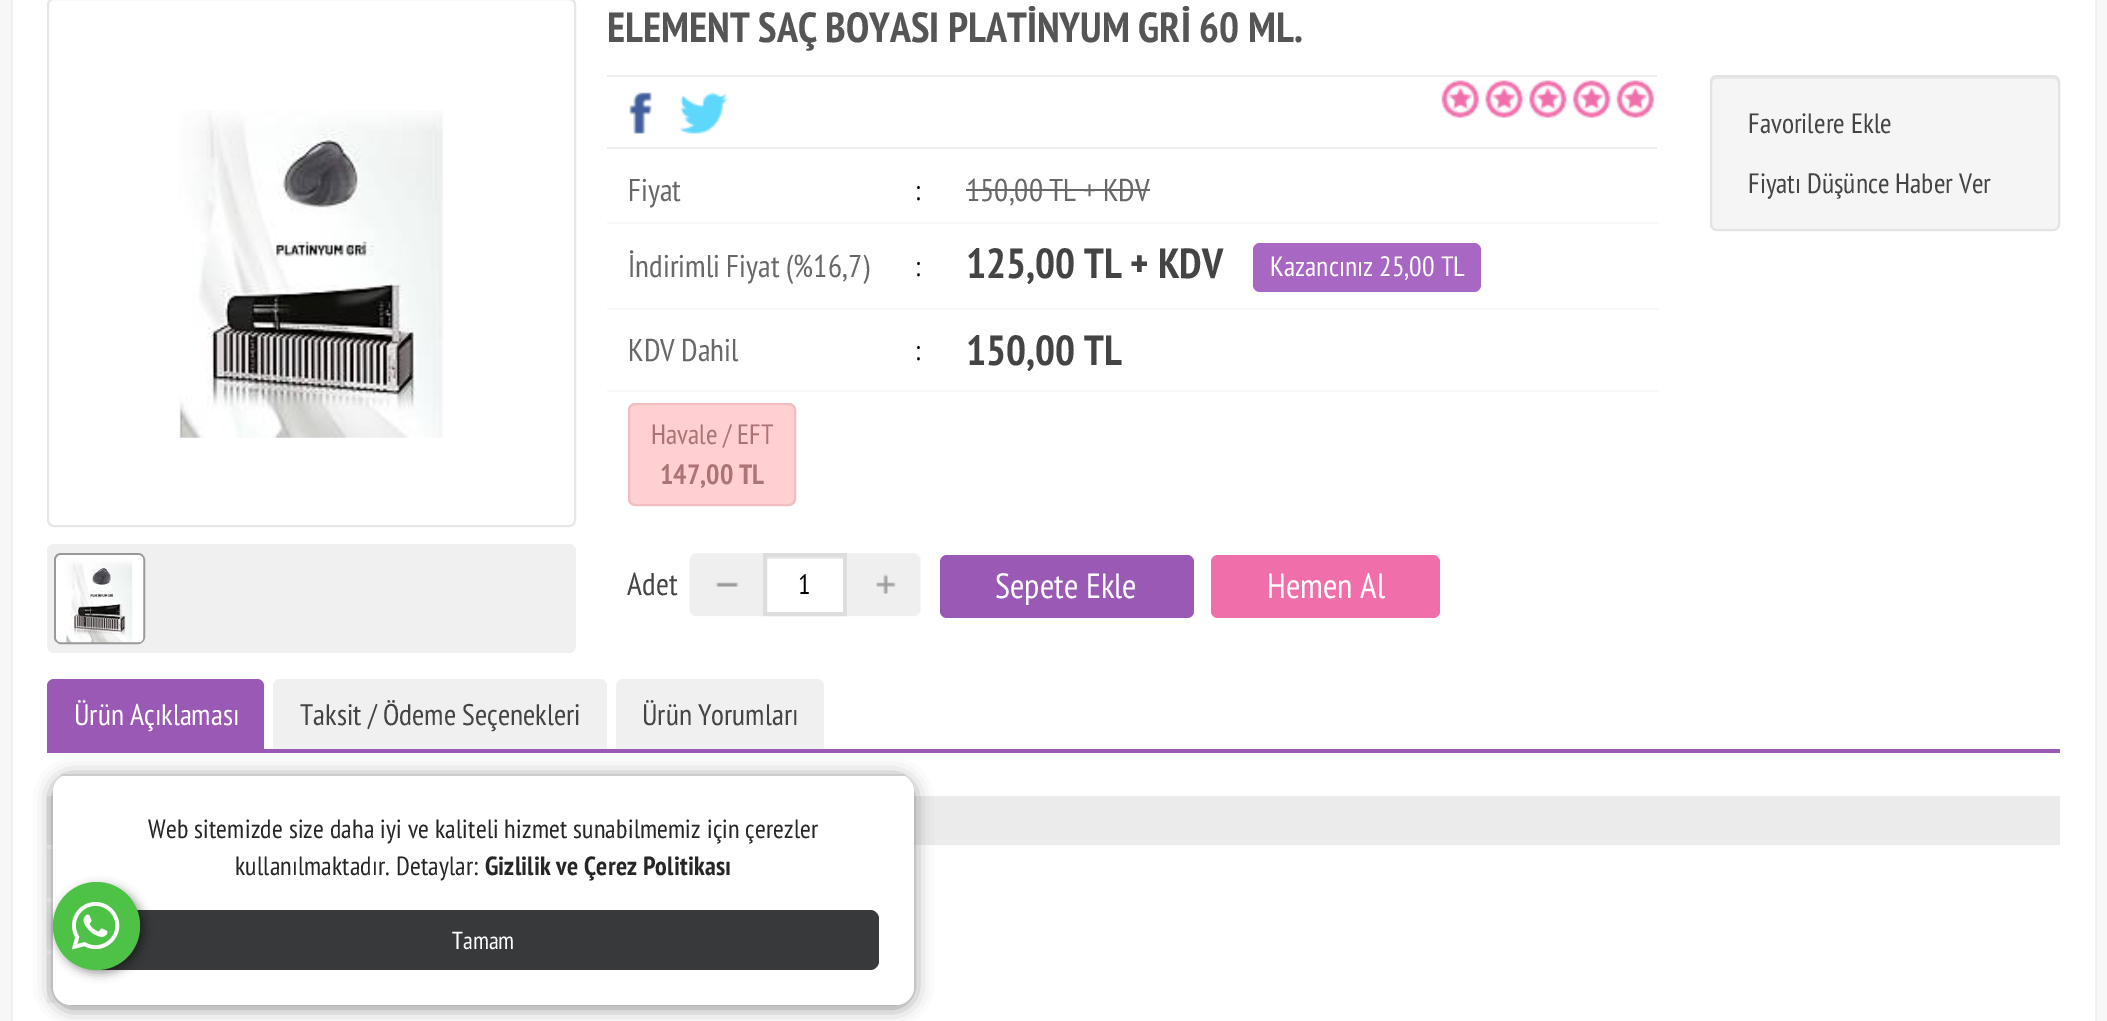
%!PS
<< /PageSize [2107 1021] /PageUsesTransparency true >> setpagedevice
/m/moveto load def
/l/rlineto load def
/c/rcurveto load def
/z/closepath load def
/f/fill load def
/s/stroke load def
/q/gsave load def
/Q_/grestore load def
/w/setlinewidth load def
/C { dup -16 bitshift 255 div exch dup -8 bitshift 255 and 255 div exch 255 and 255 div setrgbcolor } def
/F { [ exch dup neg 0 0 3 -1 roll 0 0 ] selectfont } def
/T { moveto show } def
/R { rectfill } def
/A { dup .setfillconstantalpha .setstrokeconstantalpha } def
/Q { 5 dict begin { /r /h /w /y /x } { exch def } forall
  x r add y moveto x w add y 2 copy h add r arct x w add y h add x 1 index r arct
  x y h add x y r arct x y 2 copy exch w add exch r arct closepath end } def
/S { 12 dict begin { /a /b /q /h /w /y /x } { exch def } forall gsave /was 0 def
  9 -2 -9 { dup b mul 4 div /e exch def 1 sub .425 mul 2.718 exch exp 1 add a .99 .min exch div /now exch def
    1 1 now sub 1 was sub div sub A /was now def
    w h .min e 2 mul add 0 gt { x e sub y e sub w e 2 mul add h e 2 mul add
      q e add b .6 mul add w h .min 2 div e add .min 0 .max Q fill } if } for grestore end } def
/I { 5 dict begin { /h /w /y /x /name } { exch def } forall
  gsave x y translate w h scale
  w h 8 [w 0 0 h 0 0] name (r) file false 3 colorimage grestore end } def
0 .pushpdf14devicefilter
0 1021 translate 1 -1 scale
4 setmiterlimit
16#F7F7F7 C
0 0 2107 1021 R
16#FFFFFF C
13 0 2082 1021 R
16#F0F0F0 C
2095 0 2 1021 R
11 0 2 1021 R
16#E7E7E7 C
2 w
48 -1 527 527 6 Q s
(1.rgb) 179 110 265 328 I
16#F0F0F0 C
47 544 529 109 7 Q f
16#999999 C
55 554 89 89 6 Q s
(2.rgb) 56 555 88 88 I
/PTSansNarrow-Bold 42 F
16#555555 C
(ELEMENT SAÇ BOYASI PLATİNYUM GRİ 60 ML.) 607 42 T
16#EEEEEE C
607 75 1050 2 R
607 147 1050 2 R
(3.rgb) 629 92 23 42 I
(4.rgb) 679 92 50 42 I
(5.rgb) 1441 80 214 38 I
16#F5F5F5 C
1710 75 350 156 7 Q f
16#E9E9E9 C
1717 79 m 336 0 l 3 0 5 2 5 5 c 0 -3 -1 -7 -5 -7 c -336 0 l -4 0 -5 4 -5 7 c 0 -3 2 -5 5 -5 c z f
16#E3E3E3 C
1711 76 348 154 6 Q s
/PTSansNarrow-Regular 28 F
16#444444 C
(Favorilere Ekle) 1748 133 T
(Fiyatı Düşünce Haber Ver) 1748 193 T
/PTSansNarrow-Regular 31.5 F
16#686868 C
(Fiyat) 628 201 T
/PTSansNarrow-Regular 28 F
16#000000 C
(:) 915 200 T
16#F7F7F7 C
607 222 1052 2 R
/PTSansNarrow-Regular 31.5 F
16#686868 C
(150,00 TL + KDV) 966 201 T
966 189 184 2 R
(İndirimli Fiyat \(%16,7\)) 628 277 T
/PTSansNarrow-Regular 28 F
16#000000 C
(:) 915 276 T
16#F7F7F7 C
607 308 1052 2 R
/PTSansNarrow-Bold 42 F
16#444444 C
(125,00 TL + KDV) 966 278 T
16#A867C3 C
1253 243 228 49 7 Q f
/PTSansNarrow-Regular 28 F
16#FFFFFF C
(Kazancınız 25,00 TL) 1270 276 T
/PTSansNarrow-Regular 31.5 F
16#686868 C
(KDV Dahil) 628 361 T
/PTSansNarrow-Regular 28 F
16#000000 C
(:) 915 360 T
16#F7F7F7 C
607 390 1052 2 R
/PTSansNarrow-Bold 42 F
16#444444 C
(150,00 TL) 966 365 T
16#FFCFD1 C
629 404 166 101 6 Q q f Q_
16#F0BEC0 C
s
/PTSansNarrow-Regular 28 F
16#AD7477 C
(Havale / EFT) 651 444 T
/PTSansNarrow-Bold 28 F
(147,00 TL) 660 484 T
/PTSansNarrow-Regular 31.5 F
16#444444 C
(Adet) 627 595 T
(6.rgb) 689 553 74 64 I
16#ECECEC C
767 557 77 2 R
16#DDDDDD C
4 w
765 555 80 59 rectstroke
/PTSansNarrow-Regular 28 F
16#000000 C
(1) 798 594 T
(7.rgb) 847 553 74 64 I
16#9B59B6 C
940 555 254 63 7 Q f
/PTSansNarrow-Regular 35 F
16#FFFFFF C
(Sepete Ekle) 995 598 T
16#F06EAA C
1211 555 229 63 7 Q f
16#FFFFFF C
(Hemen Al) 1267 598 T
16#9B59B6 C
47 749 2013 4 R
54 679 m 203 0 l 4 0 7 3 7 7 c 0 63 l -217 0 l 0 -63 l 0 -4 3 -7 7 -7 c z f
/PTSansNarrow-Regular 29.75 F
16#FFFFFF C
(Ürün Açıklaması) 74 725 T
16#F0F0F0 C
280 679 m 320 0 l 4 0 7 3 7 7 c 0 63 l -334 0 l 0 -63 l 0 -4 3 -7 7 -7 c z f
16#444444 C
(Taksit / Ödeme Seçenekleri) 300 725 T
16#F0F0F0 C
623 679 m 194 0 l 4 0 7 3 7 7 c 0 63 l -208 0 l 0 -63 l 0 -4 3 -7 7 -7 c z f
16#444444 C
(Ürün Yorumları) 642 725 T
16#EBEBEB C
47 796 2013 49 R
16#F1F1F1 C
47 849 6 49 R
47 902 6 48 R
47 954 16 49 R
16#888888 C
53 777 861 231 18 9 1 S
16#FFFFFF C
53 774 861 231 18 Q f
16#CCCCCC C
61 774 844 2 R
/PTSansNarrow-Regular 26.25 F
16#262626 C
148 838 m .18 0 (Web sitemizde size daha iyi ve kaliteli hizmet sunabilmemiz için çerezler) ashow
235 875 m .18 0 (kullanılmaktadır. Detaylar:) ashow
/PTSansNarrow-Bold 26.25 F
485 875 m .18 0 (Gizlilik ve Çerez Politikası) ashow
16#37393B C
88 910 791 60 9 Q f
/PTSansNarrow-Regular 24.5 F
16#FFFFFF C
(Tamam) 452 949 T
16#000000 C
56 886 88 87 43.5 5 .4 S
16#4DC247 C
53 882 87 88 43.5 Q f
(8.rgb) 72 902 48 48 I
.poppdf14devicefilter showpage
